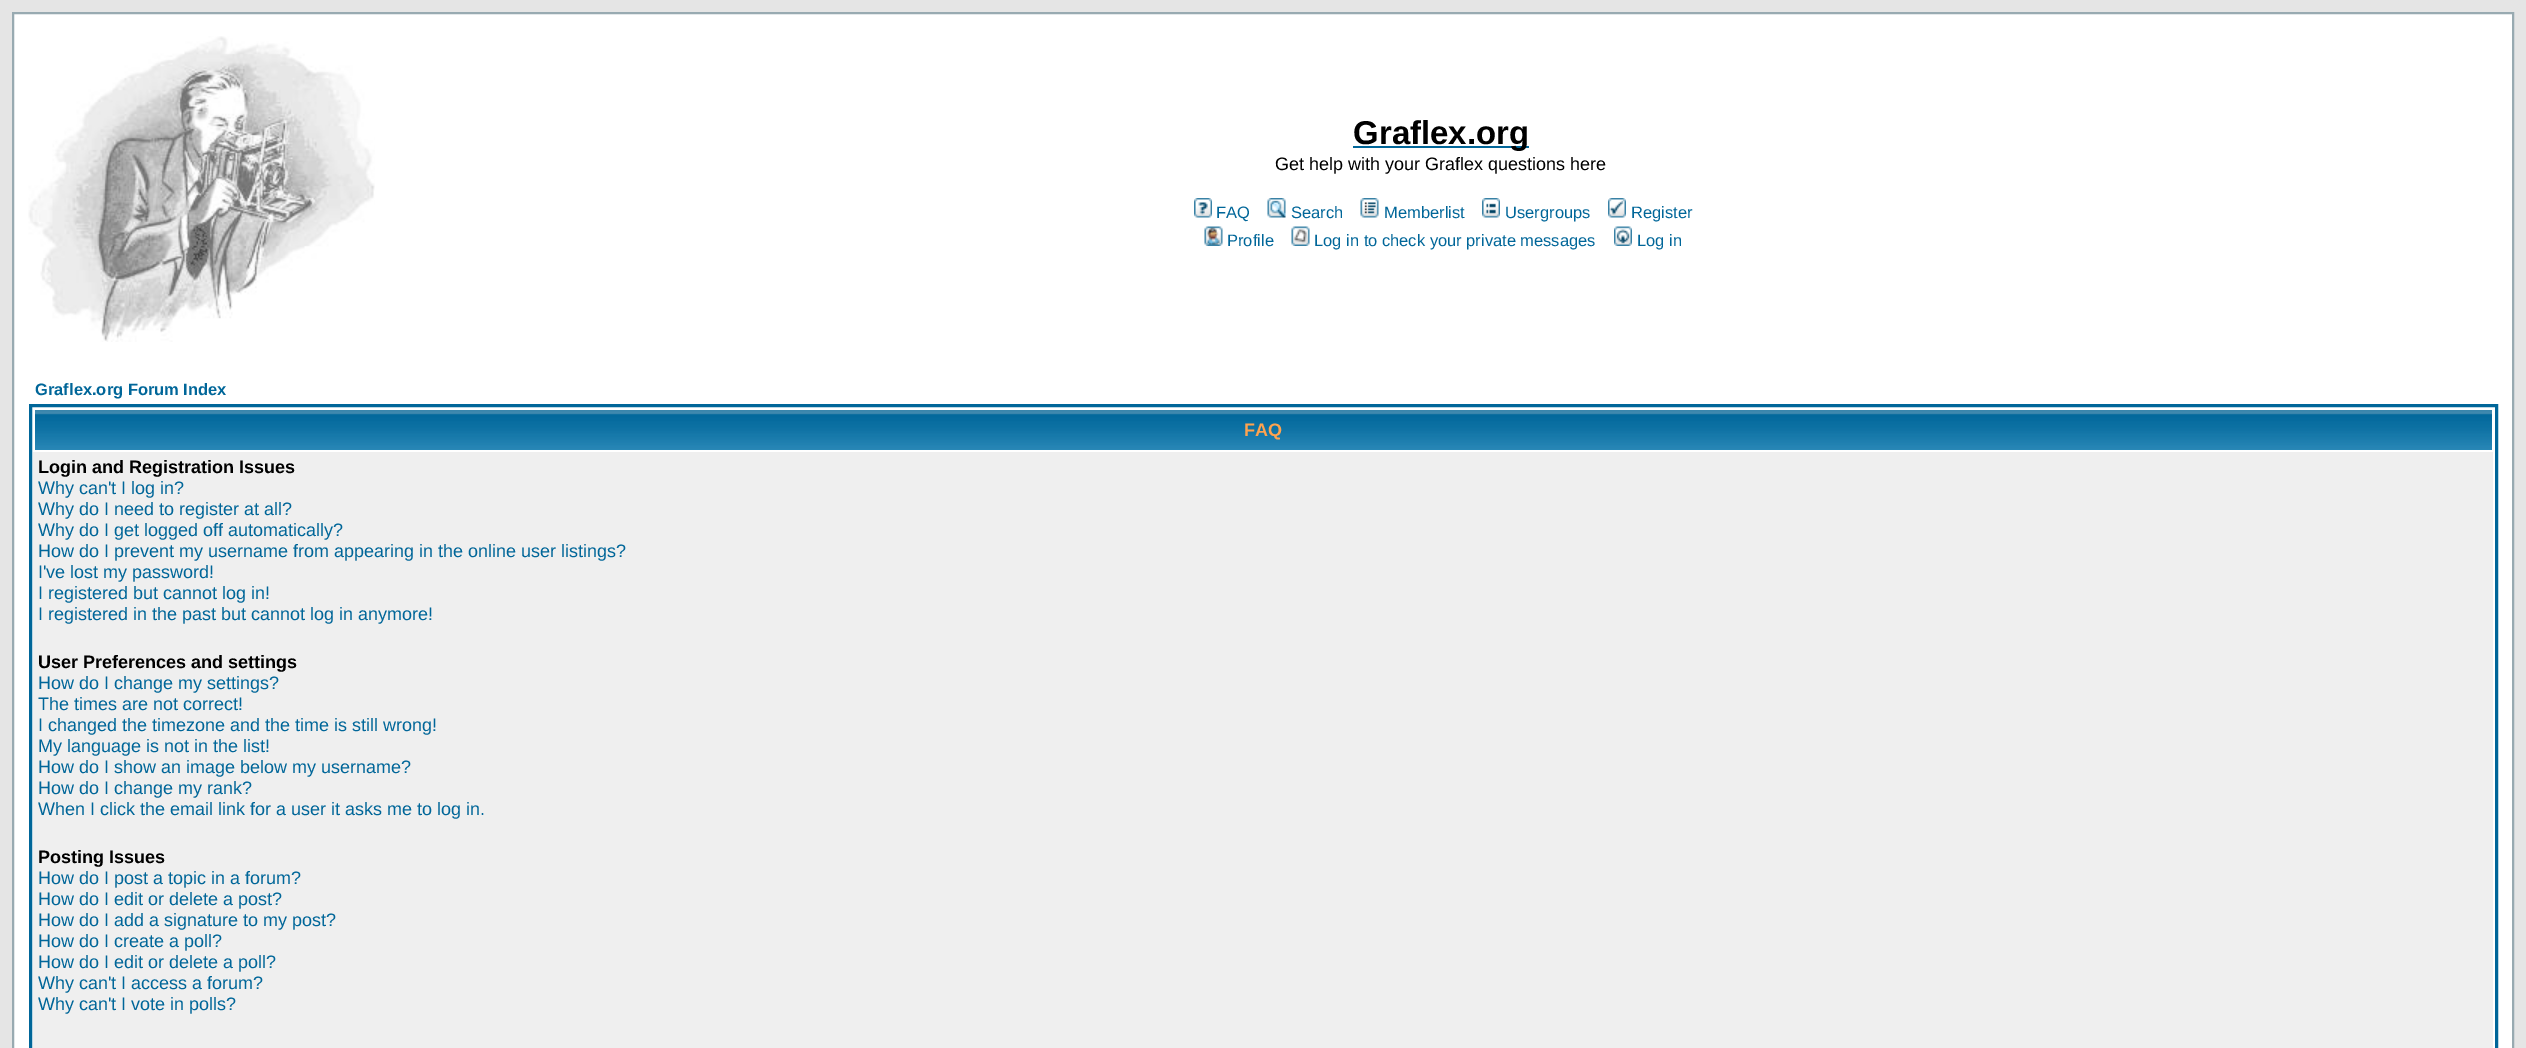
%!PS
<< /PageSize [2526 1048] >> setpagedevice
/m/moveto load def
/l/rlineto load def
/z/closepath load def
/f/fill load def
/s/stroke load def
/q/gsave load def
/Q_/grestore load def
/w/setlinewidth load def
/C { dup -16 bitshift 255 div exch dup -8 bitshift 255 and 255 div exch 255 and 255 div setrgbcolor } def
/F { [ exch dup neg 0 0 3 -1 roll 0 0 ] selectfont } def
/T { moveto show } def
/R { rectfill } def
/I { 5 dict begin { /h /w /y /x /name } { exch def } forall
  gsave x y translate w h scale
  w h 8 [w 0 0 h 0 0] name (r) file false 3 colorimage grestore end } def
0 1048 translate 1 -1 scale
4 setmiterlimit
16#E5E5E5 C
0 0 2526 1048 R
16#FFFFFF C
13 13 m 2500 0 l 0 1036 l -2500 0 l z q f Q_
16#98AAB1 C
2 w
s
(1.rgb) 28 36 347 306 I
16#006699 C
1353 146 176 2 R
/LiberationSans-Bold 33 F
16#000000 C
(Graflex.org) 1353 144 T
/LiberationSans-Regular 18 F
(Get help with your Graflex questions here) 1275 170 T
(2.rgb) 1194 198 18 20 I
/LiberationSans-Regular 16.5 F
16#006699 C
(FAQ) 1216 218 T
(3.rgb) 1267 198 19 20 I
(Search) 1291 218 T
(4.rgb) 1360 198 19 20 I
(Memberlist) 1384 218 T
(5.rgb) 1482 198 18 20 I
(Usergroups) 1505 218 T
(6.rgb) 1608 198 18 20 I
(Register) 1631 218 T
(7.rgb) 1204 226 19 20 I
(Profile) 1227 246 T
(8.rgb) 1291 226 19 20 I
(Log in to check your private messages) 1314 246 T
(9.rgb) 1614 226 18 20 I
(Log in) 1637 246 T
/LiberationSans-Bold 16.5 F
(Graflex.org Forum Index) 35 395 T
3 w
30.5 405.5 2466 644 rectstroke
(10.rgb) 35 410 2457 40 I
/LiberationSans-Bold 18 F
16#FFA34F C
(FAQ) 1244 436 T
16#EFEFEF C
33 452 2460 596 R
16#000000 C
(Login and Registration Issues) 38 473 T
/LiberationSans-Regular 18 F
16#006699 C
(Why can't I log in?) 38 494 T
(Why do I need to register at all?) 38 515 T
(Why do I get logged off automatically?) 38 536 T
(How do I prevent my username from appearing in the online user listings?) 38 557 T
(I've lost my password!) 38 578 T
(I registered but cannot log in!) 38 599 T
(I registered in the past but cannot log in anymore!) 38 620 T
/LiberationSans-Bold 18 F
16#000000 C
(User Preferences and settings) 38 668 T
/LiberationSans-Regular 18 F
16#006699 C
(How do I change my settings?) 38 689 T
(The times are not correct!) 38 710 T
(I changed the timezone and the time is still wrong!) 38 731 T
(My language is not in the list!) 38 752 T
(How do I show an image below my username?) 38 773 T
(How do I change my rank?) 38 794 T
(When I click the email link for a user it asks me to log in.) 38 815 T
/LiberationSans-Bold 18 F
16#000000 C
(Posting Issues) 38 863 T
/LiberationSans-Regular 18 F
16#006699 C
(How do I post a topic in a forum?) 38 884 T
(How do I edit or delete a post?) 38 905 T
(How do I add a signature to my post?) 38 926 T
(How do I create a poll?) 38 947 T
(How do I edit or delete a poll?) 38 968 T
(Why can't I access a forum?) 38 989 T
(Why can't I vote in polls?) 38 1010 T
showpage
